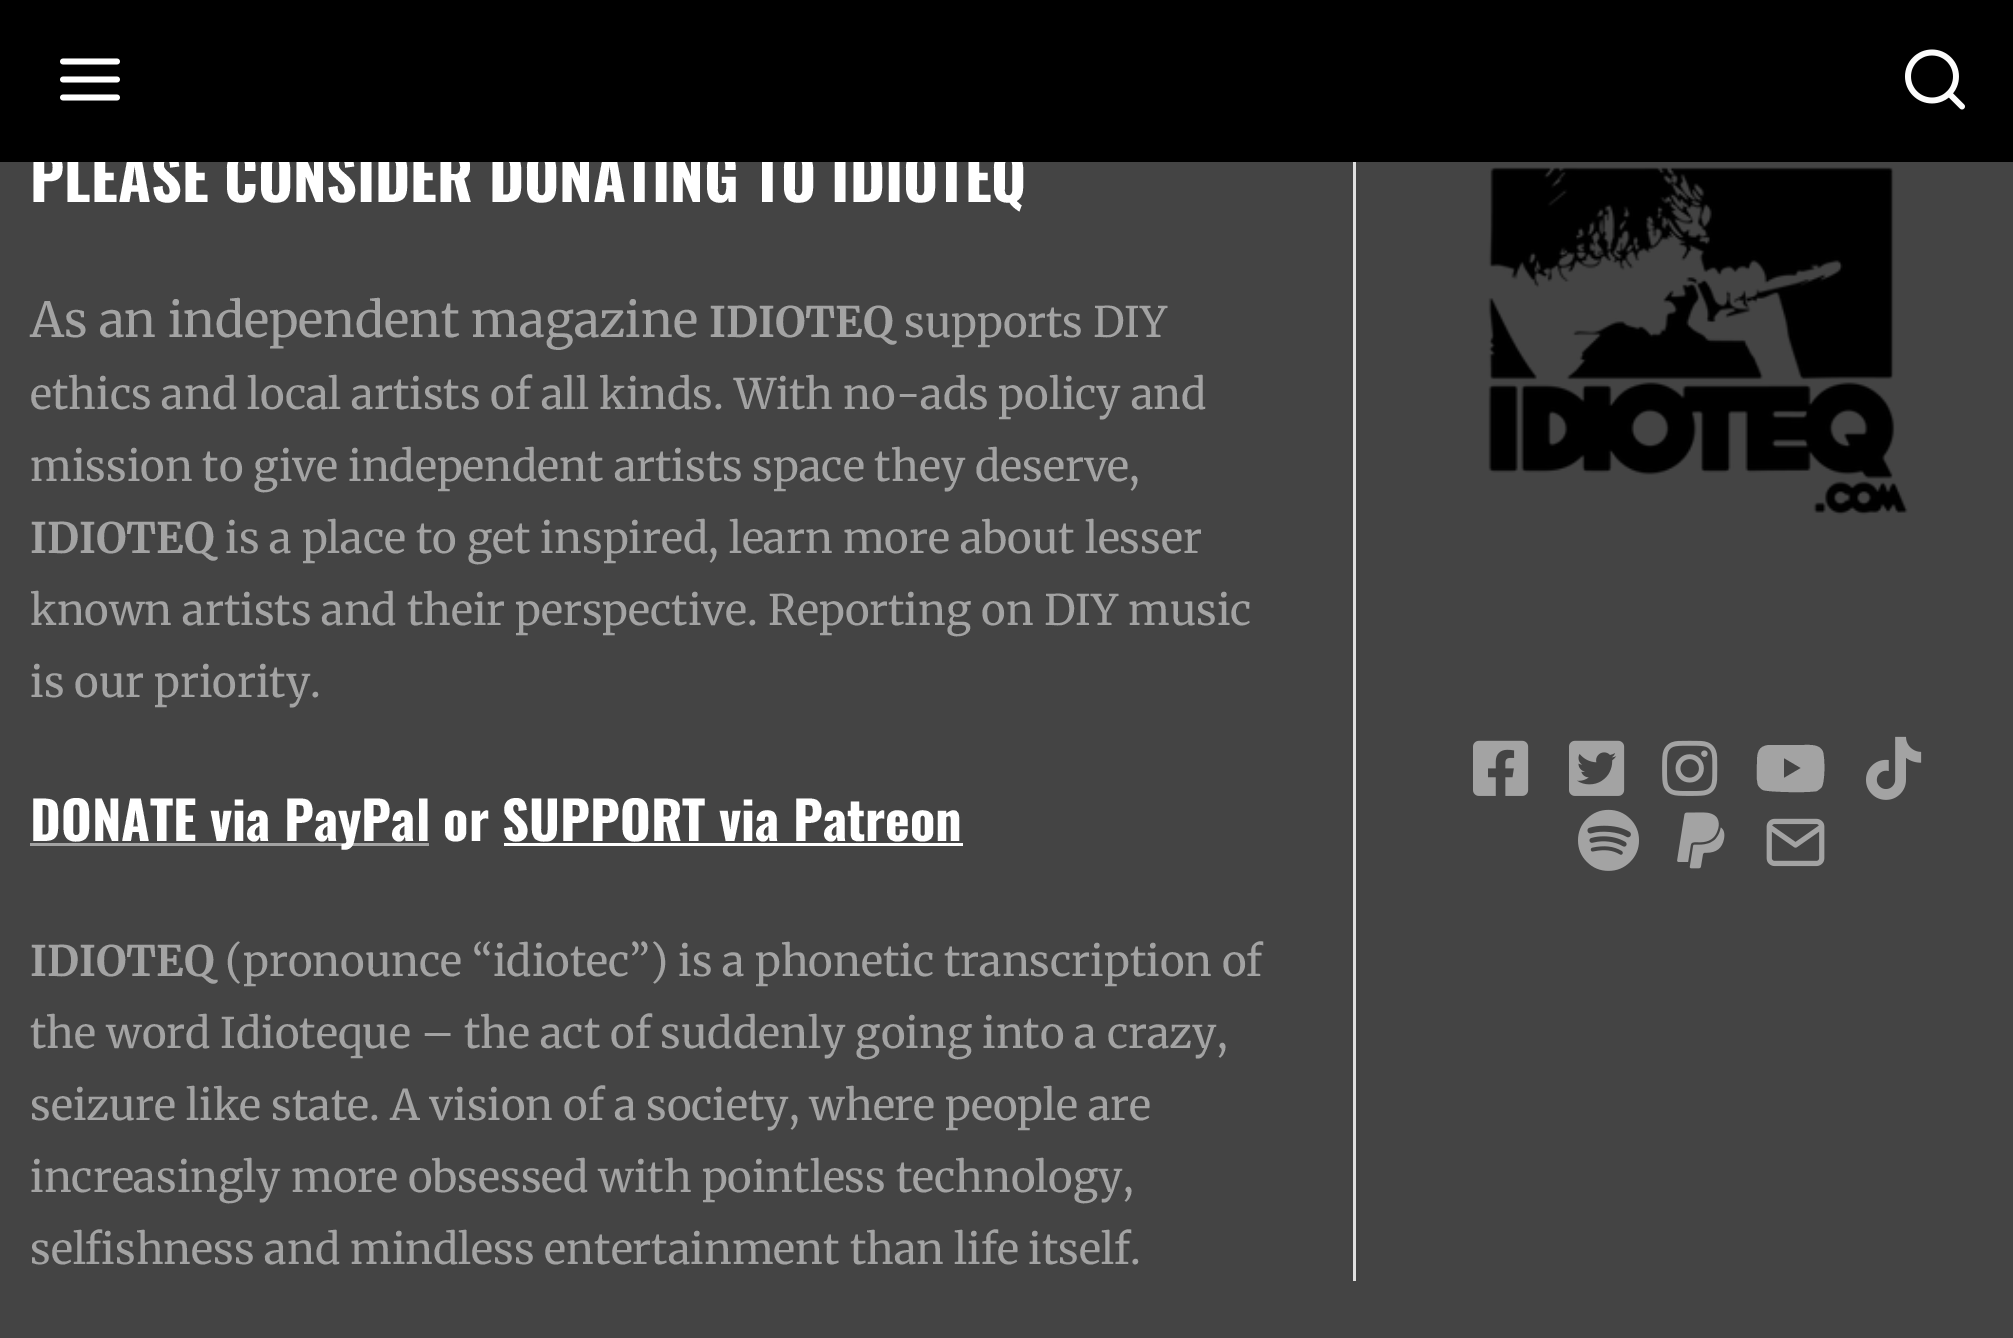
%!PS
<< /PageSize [2013 1338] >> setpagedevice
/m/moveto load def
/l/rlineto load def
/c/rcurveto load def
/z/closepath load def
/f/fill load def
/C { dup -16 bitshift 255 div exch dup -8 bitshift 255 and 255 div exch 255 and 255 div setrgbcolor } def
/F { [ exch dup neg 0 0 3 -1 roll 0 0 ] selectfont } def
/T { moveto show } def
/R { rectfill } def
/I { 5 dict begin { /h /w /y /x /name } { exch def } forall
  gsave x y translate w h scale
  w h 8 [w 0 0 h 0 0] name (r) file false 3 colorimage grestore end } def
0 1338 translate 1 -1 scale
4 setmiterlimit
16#444444 C
0 0 2013 1338 R
/Oswald-Bold 60 F
16#FFFFFF C
(PLEASE CONSIDER DONATING TO IDIOTEQ) 30 202 T
16#000000 C
0 0 2013 162 R
(1.rgb) 60 58 60 43 I
(2.rgb) 1905 49 60 61 I
/Merriweather-Regular 48 F
16#A3A3A3 C
(As an independent magazine) 30 337 T
/Merriweather-Bold 42 F
(IDIOTEQ) 709 337 T
/Merriweather-Regular 42 F
(supports DIY) 904 337 T
(ethics and local artists of all kinds. With no-ads policy and) 30 409 T
(mission to give independent artists space they deserve,) 30 481 T
/Merriweather-Bold 42 F
(IDIOTEQ) 30 553 T
/Merriweather-Regular 42 F
(is a place to get inspired, learn more about lesser) 225 553 T
(known artists and their perspective. Reporting on DIY music) 30 625 T
(is our priority.) 30 697 T
30 843 399 3 R
/Oswald-Bold 52.5 F
16#FFFFFF C
(DONATE via PayPal or SUPPORT via Patreon) 30 841 T
504 843 459 3 R
/Merriweather-Bold 42 F
16#A3A3A3 C
(IDIOTEQ) 30 976 T
/Merriweather-Regular 42 F
(\(pronounce “idiotec”\) is a phonetic transcription of) 225 976 T
(the word Idioteque – the act of suddenly going into a crazy,) 30 1048 T
(seizure like state. A vision of a society, where people are) 30 1120 T
(increasingly more obsessed with pointless technology,) 30 1192 T
(selfishness and mindless entertainment than life itself.) 30 1264 T
16#E0E0E0 C
1353 162 3 1119 R
(3.rgb) 1488 167 420 348 I
(4.rgb) 1473 740 56 56 I
(5.rgb) 1569 740 56 56 I
(6.rgb) 1662 740 56 56 I
16#A3A3A3 C
1823 752 m 2 8 2 32 -2 36 c -4 3 l -9 2 -49 1 -54 -1 c -2 -1 -4 -3 -5 -5 c -2 -7 -1 -15 -1 -22 c 0 -10 1 -17 12 -18 c 15 0 l 20 0 l 6 0 16 -1 19 7 c z 1784 778 m 17 -10 l -17 -10 l z f
(7.rgb) 1866 736 56 64 I
(8.rgb) 1578 809 61 62 I
(9.rgb) 1677 812 48 57 I
(10.rgb) 1766 818 59 49 I
showpage
